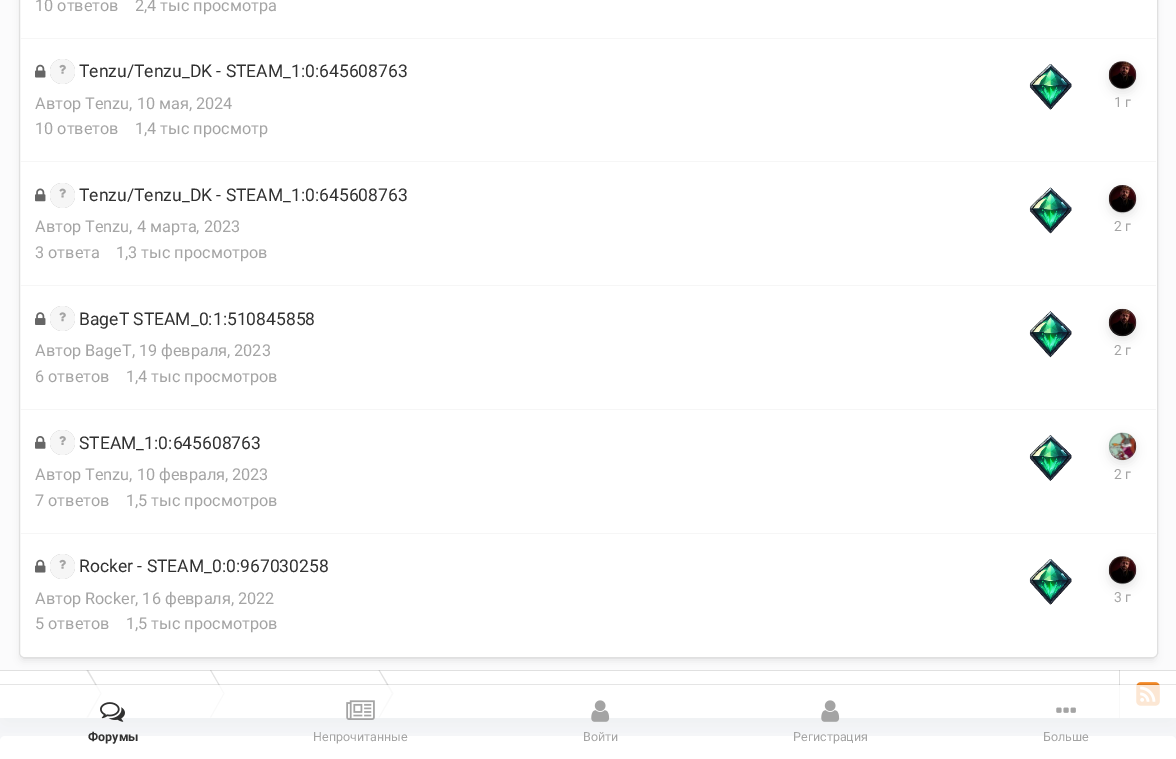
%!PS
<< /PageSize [1176 759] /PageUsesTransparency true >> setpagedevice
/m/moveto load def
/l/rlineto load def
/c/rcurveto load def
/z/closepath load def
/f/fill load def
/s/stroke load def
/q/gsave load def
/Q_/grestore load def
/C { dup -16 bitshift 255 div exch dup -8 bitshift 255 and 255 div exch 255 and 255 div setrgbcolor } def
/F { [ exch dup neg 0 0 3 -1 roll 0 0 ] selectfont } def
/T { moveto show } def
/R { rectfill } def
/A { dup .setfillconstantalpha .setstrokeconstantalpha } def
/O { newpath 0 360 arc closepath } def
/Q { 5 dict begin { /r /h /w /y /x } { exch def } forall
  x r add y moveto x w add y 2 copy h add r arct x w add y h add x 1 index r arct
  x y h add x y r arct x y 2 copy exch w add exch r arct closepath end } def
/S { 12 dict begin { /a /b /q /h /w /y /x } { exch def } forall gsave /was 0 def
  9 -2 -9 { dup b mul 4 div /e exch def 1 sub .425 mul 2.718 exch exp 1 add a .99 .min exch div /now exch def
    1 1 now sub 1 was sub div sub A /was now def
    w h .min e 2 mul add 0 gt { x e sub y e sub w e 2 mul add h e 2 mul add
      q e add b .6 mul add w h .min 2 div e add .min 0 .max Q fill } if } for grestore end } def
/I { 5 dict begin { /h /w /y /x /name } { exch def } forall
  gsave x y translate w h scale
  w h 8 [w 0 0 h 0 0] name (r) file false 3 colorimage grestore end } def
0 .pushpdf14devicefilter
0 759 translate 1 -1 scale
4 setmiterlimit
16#CBD1DD C
0 0 1176 759 R
q
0 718 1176 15 rectclip
16#000000 C
5 -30 1166 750 0 10 .2 S
Q_
0.92 A
16#FFFFFF C
0 0 1176 670 R
1 A
16#000000 C
21 -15 1134 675 2.5 4 .1 S
16#FFFFFF C
19 -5 1139 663 5 Q f
0.2 A
16#666666 C
19.5 -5.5 1138 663 4.5 Q s
1 A
16#F6F6F6 C
20 38 1136 1 R
/Roboto-Regular 16.25 F
16#A4A4A4 C
(10 ответов) 35 11 T
(2,4 тыс просмотра) 135 11 T
16#F6F6F6 C
20 161 1136 1 R
(1.rgb) 35 64 11 14 I
16#A4A4A4 C
62.5 71.5 12.5 O f
0.9 A
16#FFFFFF C
62.5 71.5 12.5 O f
1 A
(2.rgb) 59 64 7 10 I
/Roboto-Regular 17.5 F
16#313131 C
(Tenzu/Tenzu_DK - STEAM_1:0:645608763) 79 77 T
(3.rgb) 1029 64 43 46 I
/Roboto-Regular 16.25 F
16#A4A4A4 C
(Автор Tenzu, 10 мая, 2024) 35 109 T
(4.rgb) 1108 61 29 28 I
q
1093 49 m 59 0 l 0 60 l -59 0 l z 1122.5 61 m 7.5 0 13.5 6 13.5 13.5 c 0 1 l 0 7.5 -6 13.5 -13.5 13.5 c -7.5 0 -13.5 -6 -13.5 -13.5 c 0 -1 l 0 -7.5 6 -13.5 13.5 -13.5 c z eoclip newpath
16#000000 C
1109 65 27 28 13.5 5 .1 S
Q_
0.3 A
16#666666 C
1109.5 61.5 26 27 13 Q s
/Roboto-Regular 14 F
1 A
16#A4A4A4 C
(1 г) 1114 107 T
/Roboto-Regular 16.25 F
(10 ответов) 35 134 T
(1,4 тыс просмотр) 135 134 T
16#F6F6F6 C
20 285 1136 1 R
(5.rgb) 35 188 11 14 I
16#A4A4A4 C
62.5 195.5 12.5 O f
0.9 A
16#FFFFFF C
62.5 195.5 12.5 O f
1 A
(6.rgb) 59 188 7 10 I
/Roboto-Regular 17.5 F
16#313131 C
(Tenzu/Tenzu_DK - STEAM_1:0:645608763) 79 201 T
(7.rgb) 1029 187 43 47 I
/Roboto-Regular 16.25 F
16#A4A4A4 C
(Автор Tenzu, 4 марта, 2023) 35 232 T
(8.rgb) 1108 185 29 28 I
q
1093 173 m 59 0 l 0 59 l -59 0 l z 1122.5 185 m 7.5 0 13.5 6 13.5 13.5 c 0 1 l 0 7.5 -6 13.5 -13.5 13.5 c -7.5 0 -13.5 -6 -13.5 -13.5 c 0 -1 l 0 -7.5 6 -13.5 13.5 -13.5 c z eoclip newpath
16#000000 C
1109 189 27 27 13.5 5 .1 S
Q_
0.3 A
16#666666 C
1109.5 185.5 26 27 13 Q s
/Roboto-Regular 14 F
1 A
16#A4A4A4 C
(2 г) 1114 231 T
/Roboto-Regular 16.25 F
(3 ответа) 35 258 T
(1,3 тыс просмотров) 116 258 T
16#F6F6F6 C
20 409 1136 1 R
(9.rgb) 35 312 11 13 I
16#A4A4A4 C
62.5 318.5 12.5 O f
0.9 A
16#FFFFFF C
62.5 318.5 12.5 O f
1 A
(10.rgb) 59 312 7 10 I
/Roboto-Regular 17.5 F
16#313131 C
(BageT STEAM_0:1:510845858) 79 325 T
(11.rgb) 1029 311 43 47 I
/Roboto-Regular 16.25 F
16#A4A4A4 C
(Автор BageT, 19 февраля, 2023) 35 356 T
(12.rgb) 1108 308 29 29 I
q
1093 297 m 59 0 l 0 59 l -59 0 l z 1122.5 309 m 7.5 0 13.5 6 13.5 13.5 c 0 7.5 -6 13.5 -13.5 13.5 c -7.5 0 -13.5 -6 -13.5 -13.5 c 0 -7.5 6 -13.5 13.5 -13.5 c z eoclip newpath
16#000000 C
1109 313 27 27 13.5 5 .1 S
Q_
0.3 A
16#666666 C
1122.5 322.5 13 O s
/Roboto-Regular 14 F
1 A
16#A4A4A4 C
(2 г) 1114 355 T
/Roboto-Regular 16.25 F
(6 ответов) 35 382 T
(1,4 тыс просмотров) 126 382 T
16#F6F6F6 C
20 533 1136 1 R
(13.rgb) 35 436 11 13 I
16#A4A4A4 C
62.5 442.5 12.5 O f
0.9 A
16#FFFFFF C
62.5 442.5 12.5 O f
1 A
(14.rgb) 59 436 7 9 I
/Roboto-Regular 17.5 F
16#313131 C
(STEAM_1:0:645608763) 79 449 T
(15.rgb) 1029 435 43 46 I
/Roboto-Regular 16.25 F
16#A4A4A4 C
(Автор Tenzu, 10 февраля, 2023) 35 480 T
(16.rgb) 1108 432 29 28 I
q
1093 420 m 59 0 l 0 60 l -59 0 l z 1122.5 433 m 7.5 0 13.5 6 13.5 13.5 c 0 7.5 -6 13.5 -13.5 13.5 c -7.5 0 -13.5 -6 -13.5 -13.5 c 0 -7.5 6 -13.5 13.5 -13.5 c z eoclip newpath
16#000000 C
1109 436 27 28 13.5 5 .1 S
Q_
0.3 A
16#666666 C
1122.5 446.5 13 O s
/Roboto-Regular 14 F
1 A
16#A4A4A4 C
(2 г) 1114 479 T
/Roboto-Regular 16.25 F
(7 ответов) 35 506 T
(1,5 тыс просмотров) 126 506 T
(1.rgb) 35 559 11 14 I
62.5 566.5 12.5 O f
0.9 A
16#FFFFFF C
62.5 566.5 12.5 O f
1 A
(2.rgb) 59 559 7 10 I
/Roboto-Regular 17.5 F
16#313131 C
(Rocker - STEAM_0:0:967030258) 79 572 T
(17.rgb) 1029 559 43 46 I
/Roboto-Regular 16.25 F
16#A4A4A4 C
(Автор Rocker, 16 февраля, 2022) 35 604 T
(18.rgb) 1108 556 29 28 I
q
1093 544 m 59 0 l 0 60 l -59 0 l z 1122.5 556 m 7.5 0 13.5 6 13.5 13.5 c 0 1 l 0 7.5 -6 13.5 -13.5 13.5 c -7.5 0 -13.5 -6 -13.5 -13.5 c 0 -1 l 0 -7.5 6 -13.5 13.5 -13.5 c z eoclip newpath
16#000000 C
1109 560 27 28 13.5 5 .1 S
Q_
0.3 A
16#666666 C
1109.5 556.5 26 27 13 Q s
/Roboto-Regular 14 F
1 A
16#A4A4A4 C
(3 г) 1114 602 T
/Roboto-Regular 16.25 F
(5 ответов) 35 629 T
(1,5 тыс просмотров) 126 629 T
16#FFFFFF C
0 670 1176 48 R
16#E0E0E0 C
86.5 670 m 1.5 0 l 13.5 23.5 l -1 0 l z f
210 670 m 1 0 l 13.5 23.5 l -1 0 l z f
378.5 670 m 1 0 l 14 23.5 l -1.5 0 l z f
1119 670 1 48 R
0.2 A
16#666666 C
0 670 1176 1 R
1 A
16#E0E0E0 C
86.5 717.5 m 1.5 0 l 13.5 -24 l -1 0 l z f
210 717.5 m 1 0 l 13.5 -24 l -1 0 l z f
378.5 717.5 m 1 0 l 14 -24 l -1.5 0 l z f
(19.rgb) 1136 682 24 24 I
16#FFFFFF C
0 736 1176 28 5 Q f
0.1 A
16#000000 C
0 684 1176 1 R
0.8 A
16#FFFFFF C
0 685 1176 55 R
1 A
(20.rgb) 100 702 25 20 I
/Roboto-Bold 12.5 F
16#313131 C
(Форумы) 88 741 T
(21.rgb) 346 700 29 20 I
/Roboto-Regular 12.5 F
16#A4A4A4 C
(Непрочитанные) 313 741 T
(22.rgb) 591 700 19 22 I
(Войти) 583 741 T
(22.rgb) 821 700 19 22 I
(Регистрация) 793 741 T
(23.rgb) 1056 707 20 6 I
(Больше) 1043 741 T
.poppdf14devicefilter showpage
